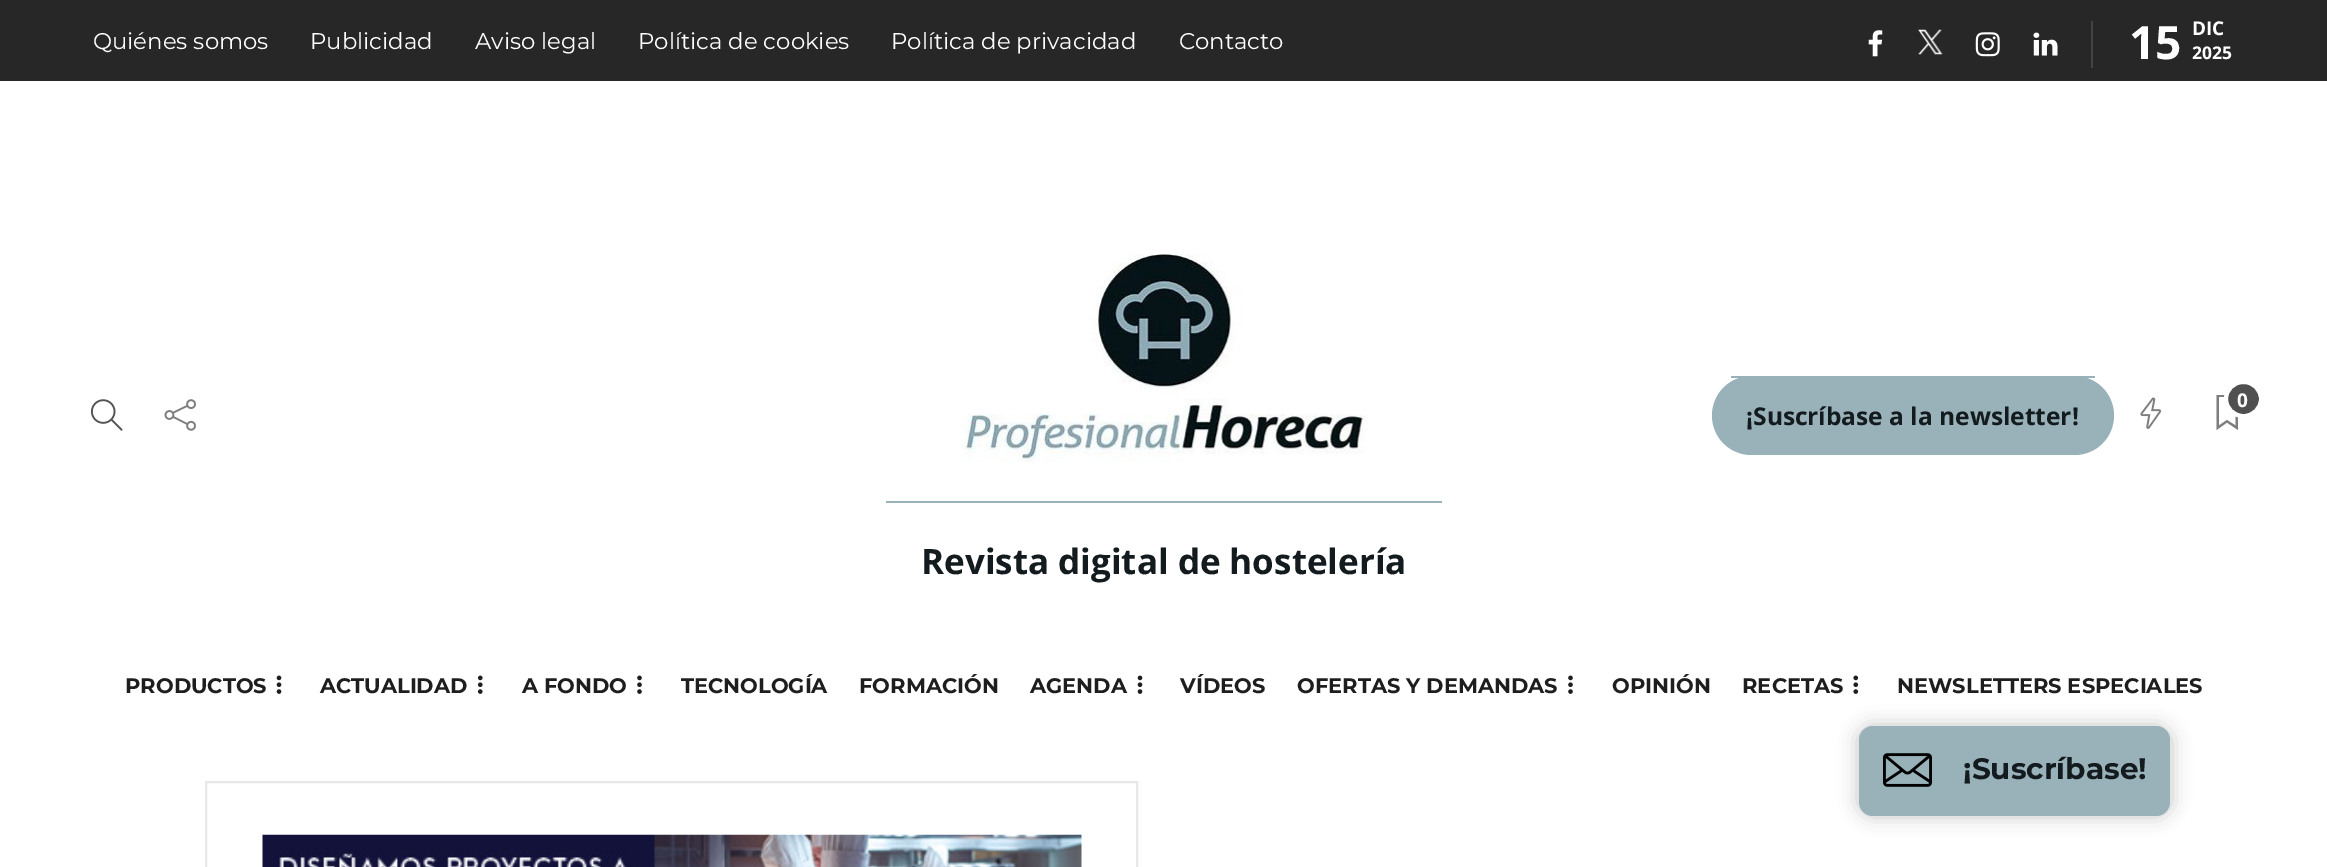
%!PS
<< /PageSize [2327 867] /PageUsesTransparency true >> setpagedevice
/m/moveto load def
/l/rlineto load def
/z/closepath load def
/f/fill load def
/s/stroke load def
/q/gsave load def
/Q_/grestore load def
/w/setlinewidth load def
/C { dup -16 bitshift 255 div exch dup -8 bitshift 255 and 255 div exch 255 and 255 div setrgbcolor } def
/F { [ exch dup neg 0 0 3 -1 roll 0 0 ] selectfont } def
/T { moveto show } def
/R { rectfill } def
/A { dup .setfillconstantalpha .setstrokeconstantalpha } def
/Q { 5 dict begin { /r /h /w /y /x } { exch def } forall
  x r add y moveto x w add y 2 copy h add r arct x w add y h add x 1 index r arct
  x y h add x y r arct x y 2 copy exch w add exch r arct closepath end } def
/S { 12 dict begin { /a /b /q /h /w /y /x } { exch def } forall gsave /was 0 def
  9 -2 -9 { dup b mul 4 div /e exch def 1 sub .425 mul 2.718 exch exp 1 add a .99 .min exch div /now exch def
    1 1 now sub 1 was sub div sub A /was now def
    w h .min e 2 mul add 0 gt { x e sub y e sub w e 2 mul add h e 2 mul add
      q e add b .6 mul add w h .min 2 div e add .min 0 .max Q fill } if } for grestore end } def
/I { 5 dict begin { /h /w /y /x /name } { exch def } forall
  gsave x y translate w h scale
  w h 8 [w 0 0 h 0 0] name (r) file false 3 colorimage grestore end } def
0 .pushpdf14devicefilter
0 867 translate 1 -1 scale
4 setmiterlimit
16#FFFFFF C
0 0 2327 867 R
16#272727 C
0 0 2327 81 R
/Montserrat-Regular 22.75 F
16#FFFFFF C
(Quiénes somos) 93 49 T
(Publicidad) 310 49 T
(Aviso legal) 475 49 T
(Política de cookies) 638 49 T
(Política de privacidad) 891 49 T
(Contacto) 1179 49 T
16#434343 C
2091 21 2 47 R
(1.rgb) 1868 30 15 27 I
(2.rgb) 1918 29 25 26 I
(3.rgb) 1975 32 25 25 I
(4.rgb) 2033 32 25 24 I
/OpenSans-Bold 46 F
16#FFFFFF C
(15) 2129 59 T
/OpenSans-Bold 19 F
(DIC) 2192 35 T
/OpenSans-Bold 17.5 F
(2025) 2192 59 T
(5.rgb) 90 399 33 32 I
(6.rgb) 164 399 32 32 I
(7.rgb) 2140 397 22 32 I
16#7E7E7E C
2216.5 395 m 0 35 l 10.5 -7.5 l 11 7.5 l 0 -35 l z 2235.5 425.5 m -8.5 -5.5 l -8 5.5 l 0 -28.5 l 16.5 0 l z f
16#505050 C
2226 382 35 34 17 Q q f Q_
16#FFFFFF C
4 w
s
/OpenSans-Bold 19 F
(0) 2237 407 T
16#99B2BA C
1712 376 402 79 39.5 Q f
1731 376 364 2 R
/OpenSans-Bold 24.5 F
16#131B1E C
(¡Suscríbase a la newsletter!) 1746 425 T
(8.rgb) 961 254 407 208 I
16#99B2BA C
886 501 556 2 R
/OpenSans-Bold 35 F
16#131B1E C
(Revista digital de hostelería) 921 574 T
/Montserrat-Bold 21 F
16#1E1E1E C
(PRODUCTOS) 125 693 T
(9.rgb) 276 675 6 19 I
(ACTUALIDAD) 320 693 T
(10.rgb) 477 675 6 19 I
(A FONDO) 522 693 T
(11.rgb) 637 675 5 19 I
(TECNOLOGÍA) 681 693 T
(FORMACIÓN) 859 693 T
(AGENDA) 1030 693 T
(9.rgb) 1137 675 6 19 I
(VÍDEOS) 1180 693 T
(OFERTAS Y DEMANDAS) 1297 693 T
(11.rgb) 1568 675 5 19 I
(OPINIÓN) 1612 693 T
(RECETAS) 1742 693 T
(12.rgb) 1853 675 6 19 I
(NEWSLETTERS ESPECIALES) 1897 693 T
16#E8E8E8 C
2 w
206 782 931 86 rectstroke
(13.rgb) 262 834 820 33 I
16#212121 C
1857 725 315 92 16 9 .25 S
16#99B2BA C
1859 726 311 90 14 Q f
(14.rgb) 1883 753 49 34 I
/Montserrat-Bold 29.5 F
16#131B1E C
(¡Suscríbase!) 1963 779 T
.poppdf14devicefilter showpage
